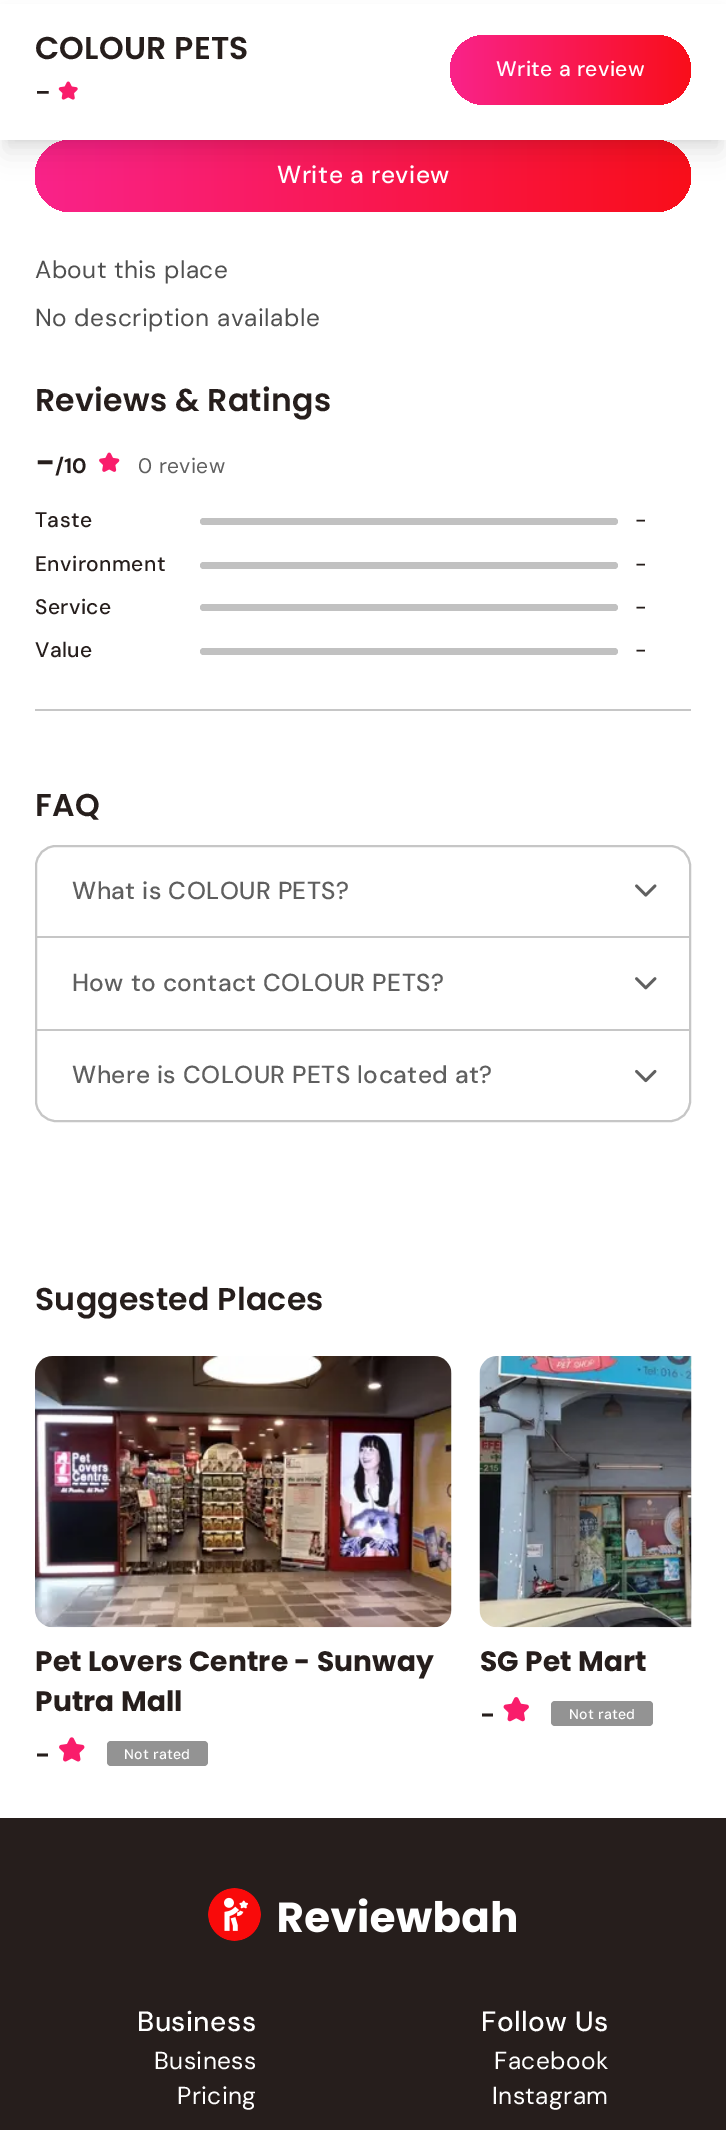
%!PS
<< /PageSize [726 2130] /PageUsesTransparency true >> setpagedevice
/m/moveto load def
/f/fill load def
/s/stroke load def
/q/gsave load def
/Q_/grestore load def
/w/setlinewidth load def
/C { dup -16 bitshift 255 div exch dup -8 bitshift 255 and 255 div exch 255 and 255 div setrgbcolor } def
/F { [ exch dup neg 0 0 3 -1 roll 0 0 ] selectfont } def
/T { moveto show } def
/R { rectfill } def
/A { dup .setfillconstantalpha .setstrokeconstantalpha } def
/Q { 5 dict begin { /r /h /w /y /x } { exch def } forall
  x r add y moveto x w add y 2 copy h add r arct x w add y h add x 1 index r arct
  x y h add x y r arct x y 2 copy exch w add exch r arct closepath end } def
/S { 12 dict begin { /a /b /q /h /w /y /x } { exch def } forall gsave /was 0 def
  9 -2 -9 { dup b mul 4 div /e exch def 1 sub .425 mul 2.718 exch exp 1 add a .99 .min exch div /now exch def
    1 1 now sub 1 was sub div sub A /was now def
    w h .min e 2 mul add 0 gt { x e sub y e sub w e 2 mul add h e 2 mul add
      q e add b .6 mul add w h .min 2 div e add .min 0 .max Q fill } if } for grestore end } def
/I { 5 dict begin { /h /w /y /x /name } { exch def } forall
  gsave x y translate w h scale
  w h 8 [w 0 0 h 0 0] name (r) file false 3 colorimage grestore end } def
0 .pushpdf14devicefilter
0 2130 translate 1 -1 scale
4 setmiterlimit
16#FFFFFF C
0 0 726 2130 R
q 35 140 656 72 36 Q clip newpath
<< /ShadingType 2 /ColorSpace /DeviceRGB /Coords [691 176 35 176] /Extend [true true] /Function << /FunctionType 2 /Domain [0 1] /C0 [.98 .055 .102] /C1 [.976 .137 .541] /N 1 >> >> shfill Q_
16#000000 C
7 14 712 126 0 5 .1 S
5 23 716 129 0 13 .1 S
16#FFFFFF C
0 4 726 136 R
/Poppins-SemiBold 31.5 F
16#261E1C C
35 59 m .25 0 (COLOUR PETS) ashow
/DMSans-SemiBold 28 F
35 101 m .25 0 (-) ashow
(1.rgb) 58 81 20 19 I
q 450 35 241 70 35 Q clip newpath
<< /ShadingType 2 /ColorSpace /DeviceRGB /Coords [691 70 450 70] /Extend [true true] /Function << /FunctionType 2 /Domain [0 1] /C0 [.98 .055 .102] /C1 [.976 .137 .541] /N 1 >> >> shfill Q_
/DMSans-Medium 21 F
16#FFFFFF C
496 76 m .4 0 (Write a review) ashow
/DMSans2-Medium 24.5 F
277 183 m .5 0 (Write a review) ashow
/DMSans-Regular 24.5 F
16#505050 C
35 278 m .4 0 (About this place) ashow
35 326 m .5 0 (No description available) ashow
/Poppins-SemiBold 31.5 F
16#261E1C C
35 411 m .25 0 (Reviews & Ratings) ashow
/DMSans-Bold 35 F
(-) 35 473 T
/DMSans2-Bold 21 F
(/10) 55 473 T
(2.rgb) 99 452 21 20 I
/DMSans2-Regular 21 F
16#5F5F5F C
138 473 m .4 0 (0 review) ashow
/DMSans-Medium 21 F
16#261E1C C
35 527 m .4 0 (Taste) ashow
16#C1C1C1 C
200 518 418 7 3.5 Q f
16#261E1C C
635 527 m .4 0 (-) ashow
35 571 m .4 0 (Environment) ashow
16#C1C1C1 C
200 562 418 7 3.5 Q f
16#261E1C C
635 571 m .4 0 (-) ashow
35 614 m .4 0 (Service) ashow
16#C1C1C1 C
200 604 418 7 3.5 Q f
16#261E1C C
635 614 m .4 0 (-) ashow
35 657 m .4 0 (Value) ashow
16#C1C1C1 C
200 648 418 7 3.5 Q f
16#261E1C C
635 657 m .4 0 (-) ashow
16#C6C6C6 C
35 709 656 2 R
/Poppins-SemiBold 31.5 F
16#261E1C C
35 816 m .25 0 (FAQ) ashow
16#C6C6C6 C
2 w
36 846 654 275 20 Q s
/DMSans2-Medium 24.5 F
16#5F5F5F C
72 899 m .4 0 (What is COLOUR PETS?) ashow
(3.rgb) 635 884 22 13 I
16#C6C6C6 C
37 936 653 2 R
16#5F5F5F C
72 991 m .4 0 (How to contact COLOUR PETS?) ashow
(4.rgb) 635 977 22 13 I
16#C6C6C6 C
37 1029 653 2 R
16#5F5F5F C
72 1083 m .4 0 (Where is COLOUR PETS located at?) ashow
(5.rgb) 635 1069 22 14 I
/Poppins-SemiBold 31.5 F
16#261E1C C
35 1310 m .25 0 (Suggested Places) ashow
(6.rgb) 35 1356 417 272 I
/Poppins-Bold 28 F
35 1671 m .2 0 (Pet Lovers Centre - Sunway) ashow
35 1711 m .2 0 (Putra Mall) ashow
/DMSans-Bold 26 F
(-) 35 1763 T
(7.rgb) 59 1737 26 25 I
16#939393 C
107 1741 101 25 4 Q f
/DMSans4-Medium 14 F
16#FFFFFF C
124 1759 m .25 0 (Not rated) ashow
(8.rgb) 479 1356 213 272 I
/Poppins-Bold 28 F
16#261E1C C
480 1671 m .2 0 (SG Pet Mart) ashow
/DMSans-Bold 26 F
(-) 480 1723 T
(9.rgb) 503 1697 26 25 I
16#939393 C
551 1701 102 25 4 Q f
/DMSans4-Medium 14 F
16#FFFFFF C
569 1719 m .25 0 (Not rated) ashow
16#261E1C C
0 1818 726 312 R
(10.rgb) 208 1888 308 53 I
/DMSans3-Medium 28 F
16#FFFFFF C
137 2031 m .4 0 (Business) ashow
/DMSans-Regular 24.5 F
154 2069 m .4 0 (Business) ashow
177 2104 m .4 0 (Pricing) ashow
/DMSans3-Medium 28 F
481 2031 m .4 0 (Follow Us) ashow
/DMSans-Regular 24.5 F
494 2069 m .4 0 (Facebook) ashow
492 2104 m .4 0 (Instagram) ashow
.poppdf14devicefilter showpage
